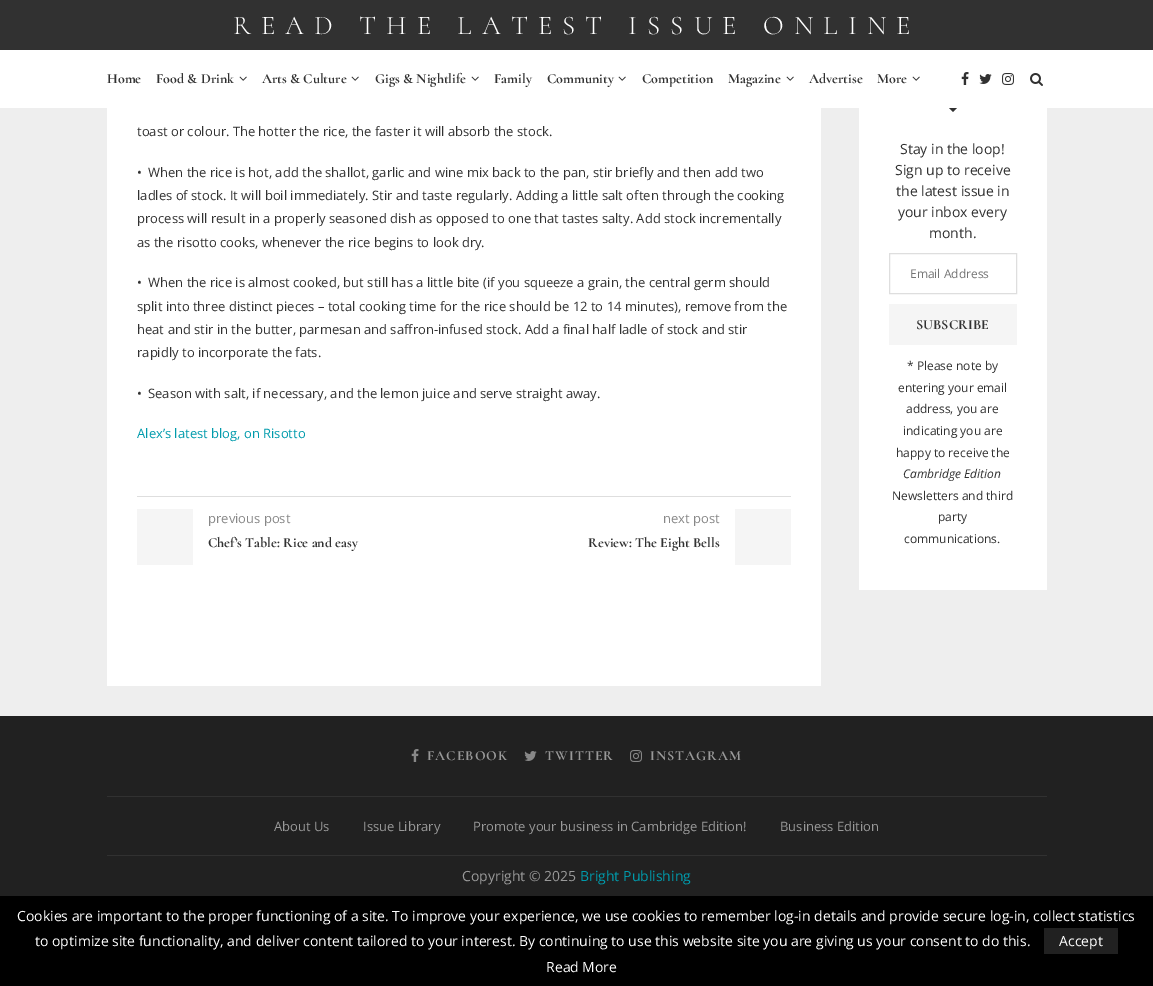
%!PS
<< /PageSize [1153 986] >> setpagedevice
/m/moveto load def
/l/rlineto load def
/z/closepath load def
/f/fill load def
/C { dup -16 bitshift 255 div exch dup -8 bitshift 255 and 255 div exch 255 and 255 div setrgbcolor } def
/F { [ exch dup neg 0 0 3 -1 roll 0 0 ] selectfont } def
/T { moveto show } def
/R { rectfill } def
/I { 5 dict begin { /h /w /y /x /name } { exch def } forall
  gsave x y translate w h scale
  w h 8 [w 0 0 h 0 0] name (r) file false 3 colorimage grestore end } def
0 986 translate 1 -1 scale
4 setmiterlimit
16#EEEEEE C
0 0 1153 986 R
16#313131 C
0 0 1153 50 R
/Cormorant-Light 27 F
16#FFFFFF C
233 34 m 10 0 (READ THE LATEST ISSUE ONLINE) ashow
859 108 188 482 R
16#313131 C
947 106 m 12 0 l -6 6 l z f
16#FFFFFF C
0 50 1153 58 R
/Cormorant-Bold 14 F
16#313131 C
(Home) 107 83 T
(Food & Drink) 156 83 T
(1.rgb) 239 76 8 5 I
(Arts & Culture) 262 83 T
(1.rgb) 351 76 8 5 I
(Gigs & Nightlife) 375 83 T
(1.rgb) 471 76 8 5 I
(Family) 494 83 T
(Community) 547 83 T
(1.rgb) 618 76 8 5 I
(Competition) 642 83 T
(Magazine) 728 83 T
(1.rgb) 786 76 8 5 I
(Advertise) 809 83 T
(More) 877 83 T
(1.rgb) 912 76 8 5 I
(2.rgb) 961 72 8 13 I
(3.rgb) 979 74 13 10 I
(4.rgb) 1002 73 12 12 I
(5.rgb) 1030 73 13 13 I
16#FFFFFF C
107 108 714 578 R
/OpenSans-Regular 13 F
16#313131 C
(toast or colour. The hotter the rice, the faster it will absorb the stock.) 137 136 T
(•) 137 177 T
(When the rice is hot, add the shallot, garlic and wine mix back to the pan, stir briefly and then add two) 148 177 T
(ladles of stock. It will boil immediately. Stir and taste regularly. Adding a little salt often through the cooking) 137 200 T
(process will result in a properly seasoned dish as opposed to one that tastes salty. Add stock incrementally) 137 223 T
(as the risotto cooks, whenever the rice begins to look dry.) 137 247 T
(•) 137 287 T
(When the rice is almost cooked, but still has a little bite \(if you squeeze a grain, the central germ should) 148 287 T
(split into three distinct pieces – total cooking time for the rice should be 12 to 14 minutes\), remove from the) 137 311 T
(heat and stir in the butter, parmesan and saffron-infused stock. Add a final half ladle of stock and stir) 137 334 T
(rapidly to incorporate the fats.) 137 357 T
(•) 137 398 T
(Season with salt, if necessary, and the lemon juice and serve straight away.) 148 398 T
16#009BAC C
(Alex’s latest blog, on Risotto) 137 438 T
16#DEDEDE C
137 496 654 1 R
16#F5F5F5 C
137 509 56 56 R
16#888888 C
(previous post) 208 523 T
/Cormorant-Bold 14 F
16#313131 C
(Chef’s Table: Rice and easy) 208 547 T
/OpenSans-Regular 13 F
16#888888 C
(next post) 663 523 T
/Cormorant-Bold 14 F
16#313131 C
(Review: The Eight Bells) 588 547 T
16#F5F5F5 C
735 509 56 56 R
/OpenSans-Regular 14 F
16#313131 C
(Stay in the loop!) 900 154 T
(Sign up to receive) 895 175 T
(the latest issue in) 896 196 T
(your inbox every) 898 217 T
(month.) 929 238 T
16#DEDEDE C
889.5 253.5 127 40 rectstroke
/OpenSans-Regular 12 F
16#757575 C
(Email Address) 910 278 T
16#F5F5F5 C
889 304 128 41 R
/Cormorant-Bold 14 F
16#313131 C
(SUBSCRIBE) 916 329 T
/OpenSans-Regular 12 F
(* Please note by) 907 370 T
(entering your email) 898 392 T
(address, you are) 906 413 T
(indicating you are) 903 435 T
(happy to receive the) 896 457 T
/OpenSans-Italic 12 F
(Cambridge Edition) 903 478 T
/OpenSans-Regular 12 F
(Newsletters and third) 892 500 T
(party) 938 521 T
(communications.) 904 543 T
16#212121 C
0 716 1153 180 R
16#313131 C
107 796 940 1 R
(6.rgb) 411 749 8 13 I
/Cormorant-Bold 14 F
16#999999 C
427 760 m 1 0 (FACEBOOK) ashow
(7.rgb) 524 751 13 10 I
545 760 m 1 0 (TWITTER) ashow
(8.rgb) 630 750 12 12 I
650 760 m 1 0 (INSTAGRAM) ashow
16#313131 C
107 855 940 1 R
/OpenSans-Regular 13 F
16#999999 C
(About Us) 274 831 T
(Issue Library) 363 831 T
(Promote your business in Cambridge Edition!) 473 831 T
(Business Edition) 780 831 T
/OpenSans-Regular 14 F
(Copyright © 2025) 462 881 T
16#009BAC C
(Bright Publishing) 580 881 T
16#000000 C
0 896 1153 90 R
16#FFFFFF C
(Cookies are important to the proper functioning of a site. To improve your experience, we use cookies to remember log-in details and provide secure log-in, collect statistics) 17 921 T
(to optimize site functionality, and deliver content tailored to your interest. By continuing to use this website site you are giving us your consent to do this.) 35 946 T
16#212121 C
1044 928 74 26 R
16#FFFFFF C
(Accept) 1059 946 T
(Read More) 546 972 T
showpage
